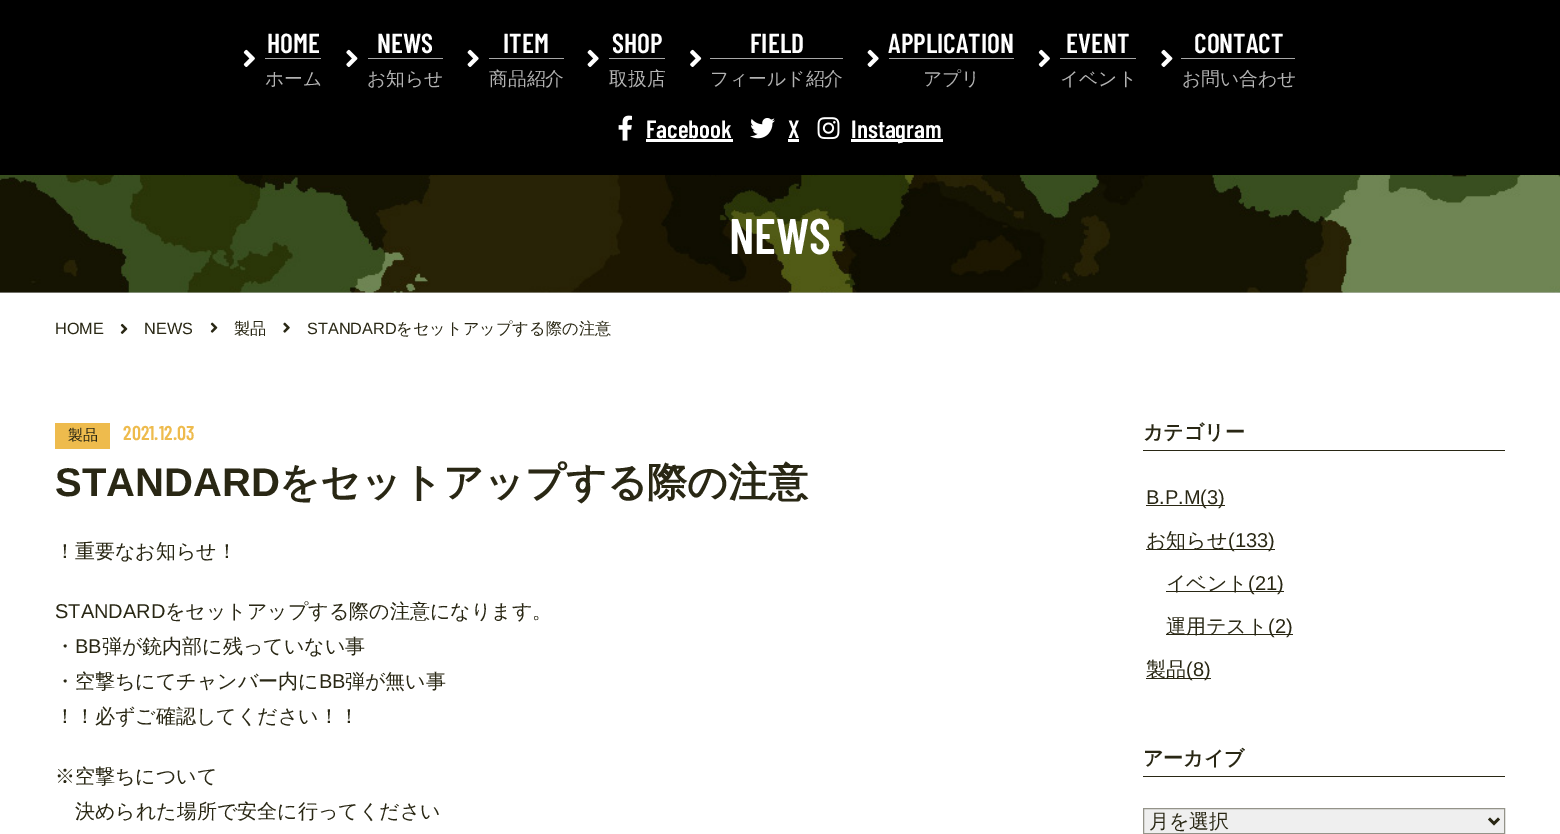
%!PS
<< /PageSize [1560 834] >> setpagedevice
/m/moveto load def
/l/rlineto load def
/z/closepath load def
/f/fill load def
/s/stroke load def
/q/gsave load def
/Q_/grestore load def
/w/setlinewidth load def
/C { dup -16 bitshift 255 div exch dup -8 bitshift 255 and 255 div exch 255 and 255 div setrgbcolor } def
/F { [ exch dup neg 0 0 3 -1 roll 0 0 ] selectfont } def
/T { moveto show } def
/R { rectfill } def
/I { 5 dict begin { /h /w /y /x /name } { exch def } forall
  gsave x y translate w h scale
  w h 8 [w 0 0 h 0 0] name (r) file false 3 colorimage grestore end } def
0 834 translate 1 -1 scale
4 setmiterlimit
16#FFFFFF C
0 0 1560 834 R
16#000000 C
0 0 1560 175 R
/BarlowCondensed-SemiBold 27.5 F
16#FFFFFF C
(HOME) 267 53 T
(1.rgb) 243 49 12 18 I
16#A7A7A7 C
265 58 56 1 R
/WenQuanYiZenHei-Medium 18.75 F
16#B3B3B3 C
(ホーム) 265 85 T
/BarlowCondensed-SemiBold 27.5 F
16#FFFFFF C
(NEWS) 377 53 T
(2.rgb) 346 49 12 18 I
16#A7A7A7 C
368 58 75 1 R
/WenQuanYiZenHei-Medium 18.75 F
16#B3B3B3 C
(お知らせ) 367 85 T
/BarlowCondensed-SemiBold 27.5 F
16#FFFFFF C
(ITEM) 503 53 T
(3.rgb) 467 49 12 18 I
16#A7A7A7 C
489 58 75 1 R
/WenQuanYiZenHei-Medium 18.75 F
16#B3B3B3 C
(商品紹介) 489 85 T
/BarlowCondensed-SemiBold 27.5 F
16#FFFFFF C
(SHOP) 612 53 T
(3.rgb) 587 49 12 18 I
16#A7A7A7 C
609 58 56 1 R
/WenQuanYiZenHei-Medium 18.75 F
16#B3B3B3 C
(取扱店) 609 85 T
/BarlowCondensed-SemiBold 27.5 F
16#FFFFFF C
(FIELD) 750 53 T
(4.rgb) 690 49 12 18 I
16#A7A7A7 C
710 58 133 1 R
/WenQuanYiZenHei-Medium 18.75 F
16#B3B3B3 C
(フィールド紹介) 710 85 T
/BarlowCondensed-SemiBold 27.5 F
16#FFFFFF C
(APPLICATION) 888 53 T
(3.rgb) 867 49 12 18 I
16#A7A7A7 C
889 58 125 1 R
/WenQuanYiZenHei-Medium 18.75 F
16#B3B3B3 C
(アプリ) 923 85 T
/BarlowCondensed-SemiBold 27.5 F
16#FFFFFF C
(EVENT) 1066 53 T
(1.rgb) 1038 49 12 18 I
16#A7A7A7 C
1060 58 76 1 R
/WenQuanYiZenHei-Medium 18.75 F
16#B3B3B3 C
(イベント) 1060 85 T
/BarlowCondensed-SemiBold 27.5 F
16#FFFFFF C
(CONTACT) 1194 53 T
(2.rgb) 1161 49 12 18 I
16#A7A7A7 C
1181 58 114 1 R
/WenQuanYiZenHei-Medium 18.75 F
16#B3B3B3 C
(お問い合わせ) 1182 85 T
(5.rgb) 618 115 14 26 I
/BarlowCondensed-SemiBold 25 F
16#FFFFFF C
(Facebook) 646 138 T
646 139 87 3 R
(6.rgb) 750 118 25 21 I
(X) 788 138 T
788 139 11 3 R
(7.rgb) 817 117 23 23 I
851 139 92 3 R
(Instagram) 851 138 T
16#CCCCCC C
0 292 1560 1 R
(8.rgb) 0 175 1560 118 I
/BarlowCondensed-SemiBold 50 F
16#FFFFFF C
(NEWS) 729 254 T
/LiberationSans-Regular 16.25 F
16#292714 C
(HOME) 55 334 T
(9.rgb) 120 323 8 11 I
(NEWS) 144 334 T
(10.rgb) 210 322 8 11 I
/WenQuanYiZenHei-Medium 16.25 F
(製品) 234 334 T
(11.rgb) 283 322 7 11 I
/LiberationSans-Regular 16.25 F
(STANDARD) 307 334 T
/WenQuanYiZenHei-Medium 16.25 F
(をセットアップする際の注意) 396 334 T
16#EEBB4D C
55 423 55 26 R
/WenQuanYiZenHei-Medium 15 F
16#292714 C
(製品) 68 440 T
/BarlowCondensed-SemiBold 20 F
16#EEBB4D C
(2021.12.03) 123 440 T
/LiberationSans-Bold 40 F
16#292714 C
(STANDARD) 55 496 T
/WenQuanYiZenHei-Bold 40 F
(をセットアップする際の注意) 279 496 T
/WenQuanYiZenHei-Medium 20 F
(！重要なお知らせ！) 55 558 T
/LiberationSans-Regular 20 F
(STANDARD) 55 618 T
/WenQuanYiZenHei-Medium 20 F
(をセットアップする際の注意になります。) 165 618 T
(・) 55 653 T
/LiberationSans-Regular 20 F
(BB) 75 653 T
/WenQuanYiZenHei-Medium 20 F
(弾が銃内部に残っていない事) 102 653 T
(・空撃ちにてチャンバー内に) 55 688 T
/LiberationSans-Regular 20 F
(BB) 319 688 T
/WenQuanYiZenHei-Medium 20 F
(弾が無い事) 345 688 T
(！！必ずご確認してください！！) 55 723 T
(※空撃ちについて) 55 783 T
(決められた場所で安全に行ってください) 75 818 T
1143 450 362 1 R
/WenQuanYiZenHei-Bold 20 F
(カテゴリー) 1143 439 T
1146 505 79 1 R
/LiberationSans-Regular 20 F
(B.P.M\(3\)) 1146 504 T
1146 549 129 1 R
/WenQuanYiZenHei-Medium 20 F
(お知らせ) 1146 547 T
/LiberationSans-Regular 20 F
(\(133\)) 1228 547 T
1166 591 118 1 R
/WenQuanYiZenHei-Medium 20 F
(イベント) 1166 590 T
/LiberationSans-Regular 20 F
(\(21\)) 1248 590 T
1166 634 127 1 R
/WenQuanYiZenHei-Medium 20 F
(運用テスト) 1166 633 T
/LiberationSans-Regular 20 F
(\(2\)) 1268 633 T
1146 678 65 1 R
/WenQuanYiZenHei-Medium 20 F
(製品) 1146 676 T
/LiberationSans-Regular 20 F
(\(8\)) 1186 676 T
1143 776 362 1 R
/WenQuanYiZenHei-Bold 20 F
(アーカイブ) 1143 765 T
16#EFEFEF C
1143.5 808.5 m 361 0 l 0 25 l -361 0 l z q f Q_
16#949389 C
s
16#292714 C
2.5 w
1489 818.5 m 5 5 l 5 -5 l s
/WenQuanYiZenHei-Medium 20 F
(月を選択) 1149 828 T
showpage
